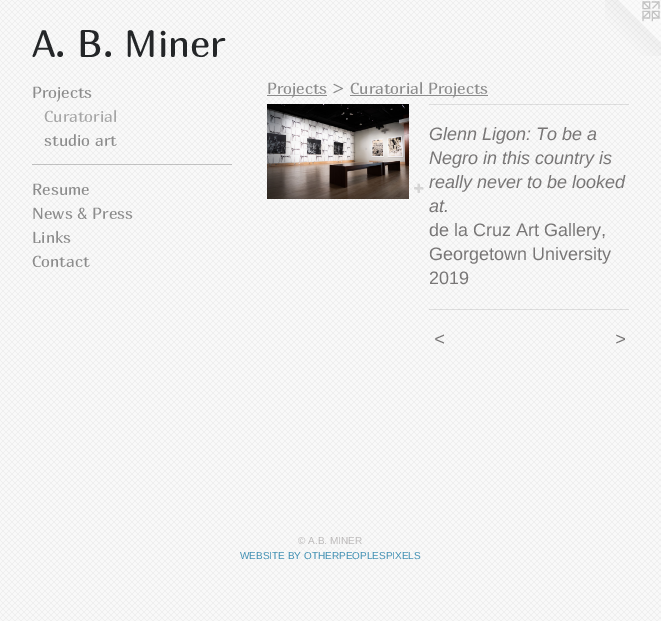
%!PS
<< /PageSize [661 621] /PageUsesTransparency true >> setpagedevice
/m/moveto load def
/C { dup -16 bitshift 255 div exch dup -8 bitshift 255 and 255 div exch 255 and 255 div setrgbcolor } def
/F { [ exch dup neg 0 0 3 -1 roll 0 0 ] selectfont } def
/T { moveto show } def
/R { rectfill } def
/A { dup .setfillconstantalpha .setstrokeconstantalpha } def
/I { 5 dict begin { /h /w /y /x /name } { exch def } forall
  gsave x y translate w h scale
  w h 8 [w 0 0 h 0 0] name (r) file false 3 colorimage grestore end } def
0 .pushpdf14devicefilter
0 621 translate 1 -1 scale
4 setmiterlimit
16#FFFFFF C
0 0 661 621 R
(1.rgb) 0 0 661 621 I
/Marmelad-Regular 38 F
16#242628 C
(A. B. Miner) 32 57 T
(2.rgb) 605 0 56 56 I
/Marmelad-Regular 16 F
16#8C8C8C C
(Projects) 32 98 T
16#A6A6A6 C
(Curatorial) 44 122 T
16#8C8C8C C
(studio art) 44 146 T
0.5 A
32 164 200 1 R
1 A
(Resume) 32 195 T
(News & Press) 32 219 T
(Links) 32 243 T
(Contact) 32 267 T
267 95 60 1 R
(Projects >) 267 94 T
350 95 138 1 R
(Curatorial Projects) 350 94 T
(3.rgb) 267 104 142 95 I
(4.rgb) 414 183 10 10 I
0.2 A
16#787676 C
429 104 200 1 R
/LiberationSans-Italic 18 F
1 A
(Glenn Ligon: To be a) 429 140 T
(Negro in this country is) 429 164 T
(really never to be looked) 429 188 T
(at.) 429 212 T
/LiberationSans-Regular 18 F
(de la Cruz Art Gallery,) 429 236 T
(Georgetown University) 429 260 T
(2019) 429 284 T
0.2 A
429 309 200 1 R
/LiberationSans-Italic 18 F
1 A
434 345 m 1 0 (<) ashow
615 345 m 1 0 (>) ashow
/LiberationSans-Regular 10 F
16#BDBBBB C
(© A.B. MINER) 298 544 T
16#4190B3 C
(WEBSITE BY OTHERPEOPLESPIXELS) 240 559 T
.poppdf14devicefilter showpage
